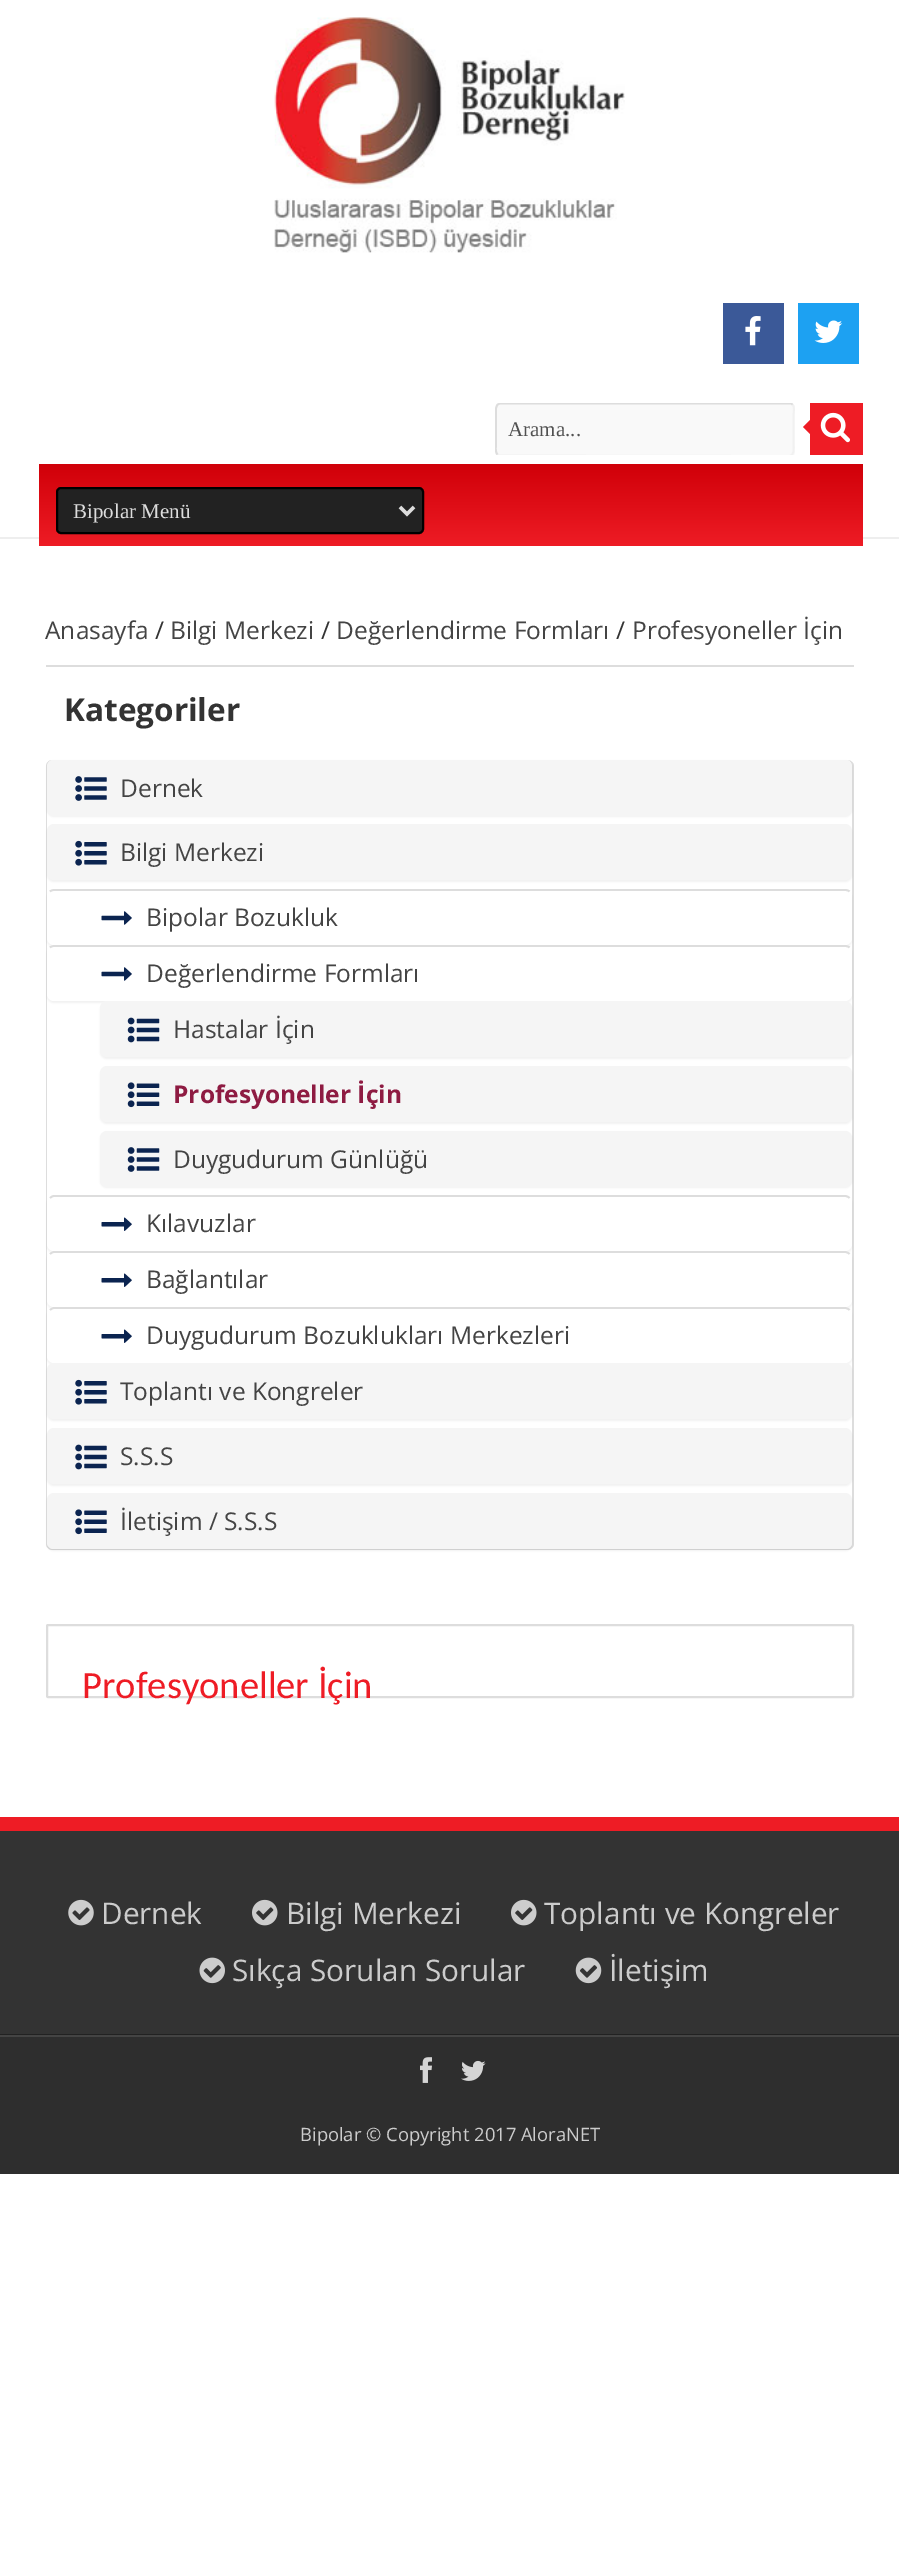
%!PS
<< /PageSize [899 2570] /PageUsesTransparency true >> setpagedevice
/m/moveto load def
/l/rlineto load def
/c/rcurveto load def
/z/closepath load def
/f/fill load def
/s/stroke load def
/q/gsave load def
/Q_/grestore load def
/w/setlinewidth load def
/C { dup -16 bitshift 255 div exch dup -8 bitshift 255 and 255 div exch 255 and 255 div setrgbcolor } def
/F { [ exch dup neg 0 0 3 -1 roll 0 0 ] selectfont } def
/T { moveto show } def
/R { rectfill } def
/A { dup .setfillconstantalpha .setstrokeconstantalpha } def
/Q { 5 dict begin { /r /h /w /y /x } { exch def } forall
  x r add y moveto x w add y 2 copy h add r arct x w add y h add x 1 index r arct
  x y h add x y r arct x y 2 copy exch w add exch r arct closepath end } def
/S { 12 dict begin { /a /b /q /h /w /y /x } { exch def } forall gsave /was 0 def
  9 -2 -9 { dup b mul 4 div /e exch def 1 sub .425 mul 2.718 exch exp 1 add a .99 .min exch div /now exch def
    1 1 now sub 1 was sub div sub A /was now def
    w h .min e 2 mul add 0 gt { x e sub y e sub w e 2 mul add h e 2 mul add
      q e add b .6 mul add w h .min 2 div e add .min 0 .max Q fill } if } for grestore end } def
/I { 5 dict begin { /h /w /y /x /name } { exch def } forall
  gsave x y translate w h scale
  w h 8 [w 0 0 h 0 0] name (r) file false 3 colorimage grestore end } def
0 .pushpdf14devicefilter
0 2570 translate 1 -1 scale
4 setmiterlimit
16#FFFFFF C
0 0 899 2570 R
16#EEEEEE C
0 537 899 2 R
(1.rgb) 274 17 351 236 I
16#3B5998 C
723 303 61 61 R
(2.rgb) 745 316 16 30 I
16#1DA1F2 C
798 303 61 61 R
(3.rgb) 814 320 29 23 I
q
495 403 368 52 rectclip
16#F9F9F9 C
495 403 300 54 5 Q f
16#F1F1F1 C
1.8 w
792.5 404.5 m 2.5 2.5 1 8.5 1 10.5 c 0 29 l 0 3.5 1.5 12 -4.5 12 c -290 -.5 l -1.5 -1 l s
16#DDDDDD C
497.5 454.5 m -2.5 -2.5 -1.5 -8 -1.5 -10.5 c 0 -29 l 0 -3 -1.5 -11.5 4.5 -11.5 c 290.5 0 l 1.5 1 l s
Q_
/LiberationSerif-Regular 21 F
16#515151 C
(Arama...) 508 436 T
16#EE1C25 C
810 420 m 0 14 l -7 -7 l z f
810 403 53 52 R
(4.rgb) 820 412 30 31 I
q 39 464 m 824 0 l 0 82 l -824 0 l z clip newpath
<< /ShadingType 2 /ColorSpace /DeviceRGB /Coords [451 546 451 464] /Extend [true true] /Function << /FunctionType 2 /Domain [0 1] /C0 [.933 .11 .145] /C1 [.816 0 .035] /N 1 >> >> shfill Q_
16#222222 C
57 488 366 45 4 Q q f Q_
16#000000 C
2 w
s
16#DDDDDD C
3.5 w
400 507 m 7 7 l 7 -7 l s
(Bipolar Menü) 73 518 T
46 665 808 2 R
/OpenSans-Regular 24.5 F
16#444444 C
(Anasayfa) 45 639 T
16#333333 C
(/) 155 639 T
16#444444 C
(Bilgi Merkezi) 170 639 T
16#333333 C
(/) 321 639 T
16#444444 C
(Değerlendirme Formları) 336 639 T
16#333333 C
(/) 616 639 T
16#444444 C
(Profesyoneller İçin) 632 639 T
/OpenSans-Bold 31.5 F
16#333333 C
(Kategoriler) 64 721 T
16#DDDDDD C
52 760 m 795 0 l 4 0 7 3 7 6 c 0 778 l 0 3 -3 6 -7 6 c -795 0 l -3 0 -6 -3 -6 -6 c 0 -778 l 0 -3 3 -6 6 -6 c z 52 760 m 795 0 l 3 0 5 3 5 6 c 0 778 l 0 2 -2 5 -5 5 c -795 0 l -2 0 -5 -3 -5 -5 c 0 -778 l 0 -3 3 -6 5 -6 c z eofill
16#000000 C
47 761 805 56 7 1 .05 S
16#F5F5F5 C
47 760 805 56 7 Q f
(5.rgb) 75 776 32 25 I
/OpenSans-Regular 24.5 F
16#444444 C
(Dernek) 120 797 T
16#000000 C
47 826 805 56 7 1 .05 S
16#F5F5F5 C
47 824 805 56 7 Q f
(6.rgb) 75 840 32 26 I
16#444444 C
(Bilgi Merkezi) 120 861 T
16#000000 C
47 891 805 56 7 1 .05 S
16#FFFFFF C
47 889 805 56 7 Q f
16#DDDDDD C
1.8 w
50 891.5 m 1 -1 2.5 -1.5 4 -1.5 c 791 0 l 2 0 3.5 .5 4.5 1.5 c s
(7.rgb) 101 911 31 14 I
16#444444 C
(Bipolar Bozukluk) 146 926 T
16#000000 C
47 947 805 56 7 1 .05 S
16#FFFFFF C
47 945 805 56 7 Q f
16#DDDDDD C
50 947.5 m 1 -1 2.5 -1.5 4 -1.5 c 791 0 l 2 0 3.5 .5 4.5 1.5 c s
(7.rgb) 101 967 31 14 I
16#444444 C
(Değerlendirme Formları) 146 982 T
16#000000 C
100 1003 752 56 7 1 .05 S
16#F5F5F5 C
100 1001 752 56 7 Q f
(8.rgb) 127 1017 33 26 I
16#444444 C
(Hastalar İçin) 173 1038 T
16#000000 C
100 1068 752 56 7 1 .05 S
16#F5F5F5 C
100 1066 752 56 7 Q f
(9.rgb) 127 1082 33 26 I
/OpenSans-Bold 24.5 F
16#8E1B42 C
(Profesyoneller İçin) 173 1103 T
16#000000 C
100 1132 752 56 7 1 .05 S
16#F5F5F5 C
100 1131 752 56 7 Q f
(10.rgb) 127 1147 33 25 I
/OpenSans-Regular 24.5 F
16#444444 C
(Duygudurum Günlüğü) 173 1168 T
16#000000 C
47 1197 805 56 7 1 .05 S
16#FFFFFF C
47 1195 805 56 7 Q f
16#DDDDDD C
50 1198 m 1 -1 2.5 -2 4 -2 c 791 0 l 2 0 3.5 1 4.5 2 c s
(11.rgb) 101 1217 31 14 I
16#444444 C
(Kılavuzlar) 146 1232 T
16#000000 C
47 1253 805 56 7 1 .05 S
16#FFFFFF C
47 1251 805 56 7 Q f
16#DDDDDD C
50 1254 m 1 -1 2.5 -2 4 -2 c 791 0 l 2 0 3.5 1 4.5 2 c s
(11.rgb) 101 1273 31 14 I
16#444444 C
(Bağlantılar) 146 1288 T
16#000000 C
47 1309 805 56 7 1 .05 S
16#FFFFFF C
47 1307 805 56 7 Q f
16#DDDDDD C
50 1310 m 1 -1 2.5 -2 4 -2 c 791 0 l 2 0 3.5 1 4.5 2 c s
(11.rgb) 101 1329 31 14 I
16#444444 C
(Duygudurum Bozuklukları Merkezleri) 146 1344 T
16#000000 C
47 1365 805 56 7 1 .05 S
16#F5F5F5 C
47 1363 805 56 7 Q f
(6.rgb) 75 1379 32 26 I
16#444444 C
(Toplantı ve Kongreler) 120 1400 T
16#000000 C
47 1430 805 56 7 1 .05 S
16#F5F5F5 C
47 1428 805 56 7 Q f
(12.rgb) 75 1444 32 26 I
16#444444 C
(S.S.S) 120 1465 T
16#000000 C
47 1495 805 56 7 1 .05 S
16#F5F5F5 C
47 1493 805 56 7 Q f
(13.rgb) 75 1509 32 26 I
16#444444 C
(İletişim / S.S.S) 120 1530 T
16#DDDDDD C
2 w
47 1625 806 72 1 Q s
/Carlito-Regular 38.5 F
16#EE1C25 C
(Profesyoneller İçin) 82 1698 T
16#333333 C
0 1831 899 203 R
16#EE1C25 C
0 1817 899 14 R
16#222222 C
0 2034 899 1 R
(14.rgb) 68 1899 26 27 I
/OpenSans-Regular 29.75 F
16#CCCCCC C
(Dernek) 101 1924 T
(15.rgb) 252 1899 26 27 I
(Bilgi Merkezi) 286 1924 T
(15.rgb) 511 1899 26 27 I
(Toplantı ve Kongreler) 544 1924 T
(16.rgb) 199 1957 26 27 I
(Sıkça Sorulan Sorular) 232 1981 T
(17.rgb) 575 1957 27 27 I
(İletişim) 609 1981 T
16#2E2E2E C
0 2037 899 137 R
16#444444 C
0 2035 899 2 R
(18.rgb) 420 2057 12 26 I
(19.rgb) 461 2060 25 21 I
/OpenSans-Regular 18.4 F
16#CCCCCC C
(Bipolar © Copyright 2017 AloraNET) 300 2141 T
.poppdf14devicefilter showpage
